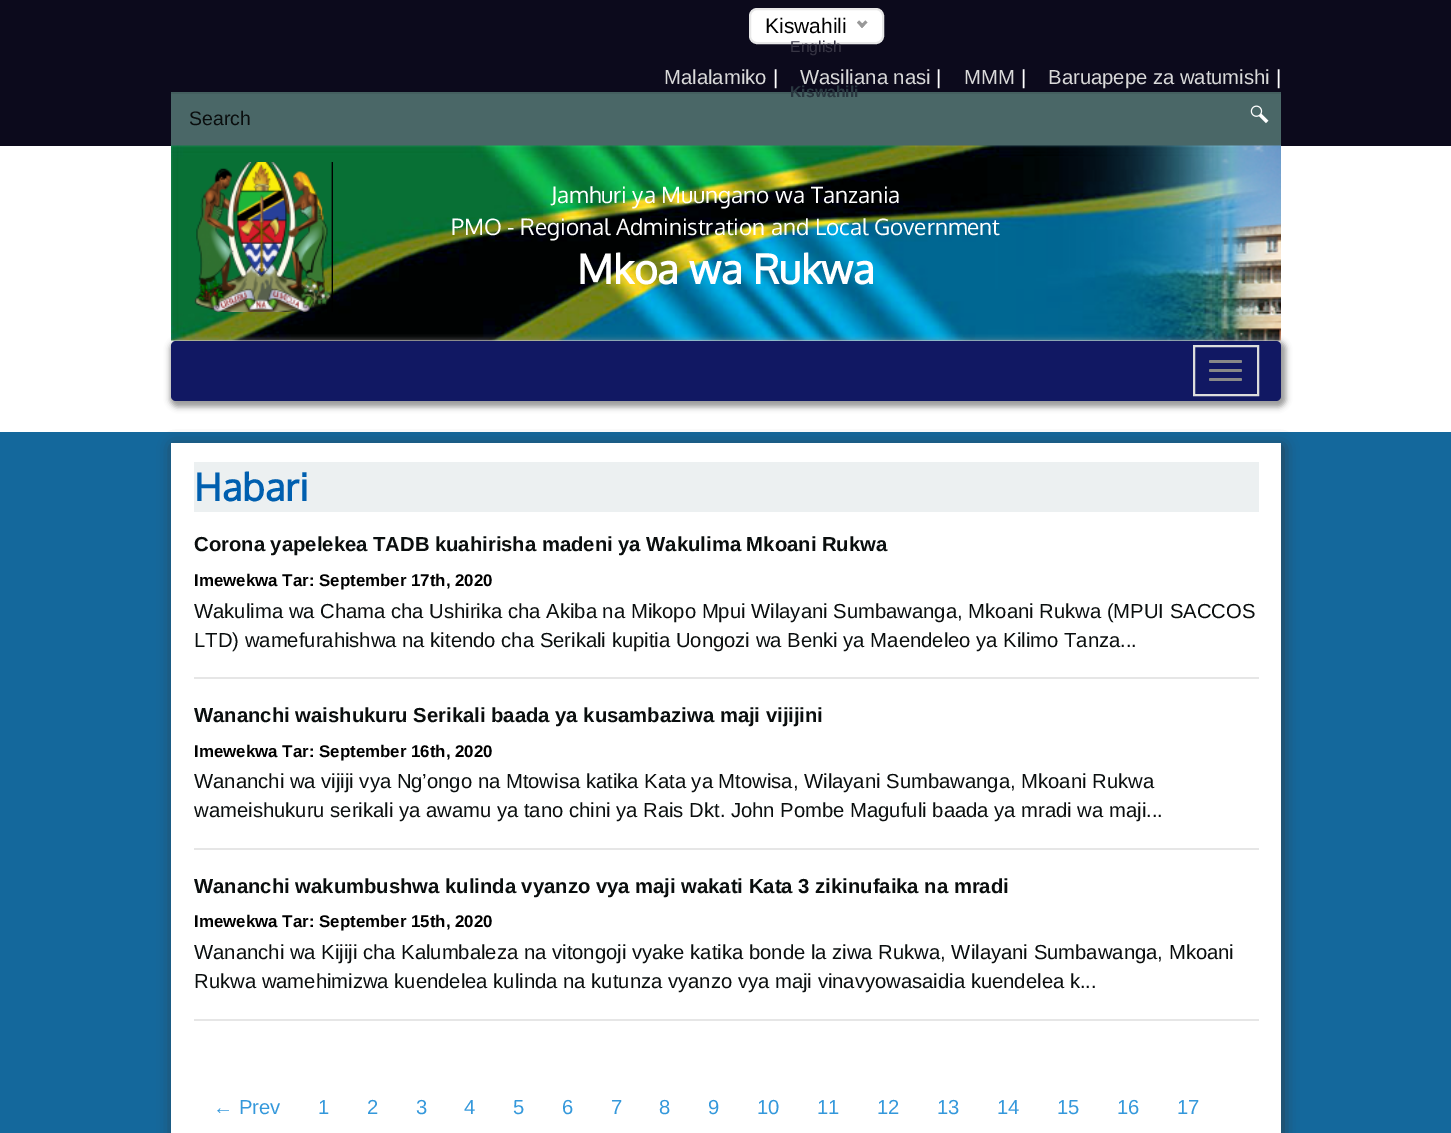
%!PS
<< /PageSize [1451 1133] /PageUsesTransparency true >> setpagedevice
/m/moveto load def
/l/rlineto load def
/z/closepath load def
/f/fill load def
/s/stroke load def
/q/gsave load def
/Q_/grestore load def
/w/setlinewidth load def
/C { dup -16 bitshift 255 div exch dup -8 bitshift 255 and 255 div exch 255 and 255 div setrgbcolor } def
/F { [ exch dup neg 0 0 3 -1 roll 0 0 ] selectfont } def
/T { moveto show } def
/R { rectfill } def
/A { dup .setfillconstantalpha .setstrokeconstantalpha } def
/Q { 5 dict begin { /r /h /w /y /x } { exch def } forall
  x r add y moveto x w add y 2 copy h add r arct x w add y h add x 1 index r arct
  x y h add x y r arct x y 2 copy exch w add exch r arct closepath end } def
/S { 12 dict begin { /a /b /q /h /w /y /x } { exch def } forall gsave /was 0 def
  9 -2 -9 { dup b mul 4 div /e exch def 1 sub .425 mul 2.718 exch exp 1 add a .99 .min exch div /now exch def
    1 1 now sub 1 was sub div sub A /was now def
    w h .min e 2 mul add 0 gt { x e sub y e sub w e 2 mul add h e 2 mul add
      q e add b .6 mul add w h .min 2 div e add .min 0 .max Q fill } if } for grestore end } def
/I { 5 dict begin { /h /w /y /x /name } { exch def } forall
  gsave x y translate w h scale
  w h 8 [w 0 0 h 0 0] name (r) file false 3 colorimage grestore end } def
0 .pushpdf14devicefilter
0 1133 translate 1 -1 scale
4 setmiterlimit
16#14689C C
0 0 1451 1133 R
16#0C0A1C C
0 0 1451 146 R
16#FFFFFF C
750 9 133 34 7 Q q f Q_
16#E8E8E8 C
2 w
s
/LiberationSans-Regular 21 F
16#000000 C
(Kiswahili) 765 33 T
16#999999 C
865.5 20.5 m 2 2 l -5.5 5.5 l -2 -2.5 l z f
859 20.5 m 5.5 5 l -2.5 2.5 l -5 -5.5 l z f
/LiberationSans-Regular 15.75 F
16#373544 C
(English) 790 52 T
16#4A6767 C
171 94 1110 52 R
16#445F5F C
171 92 1110 2 R
/LiberationSans-Bold 15.75 F
16#2A3840 C
(Kiswahili) 790 97 T
/LiberationSans-Regular 20.25 F
16#D9D9D9 C
(Malalamiko) 664 84 T
16#FFFFFF C
(|) 773 84 T
16#D9D9D9 C
(Wasiliana nasi) 800 84 T
16#FFFFFF C
(|) 936 84 T
16#D9D9D9 C
(MMM) 964 84 T
16#FFFFFF C
(|) 1021 84 T
16#D9D9D9 C
(Baruapepe za watumishi) 1048 84 T
16#FFFFFF C
(|) 1276 84 T
/LiberationSans-Regular 19.5 F
16#0A0E0E C
(Search) 189 125 T
(1.rgb) 1250 105 19 19 I
16#FFFFFF C
0 146 1451 286 R
(2.rgb) 171 145 1110 196 I
(3.rgb) 194 162 139 150 I
/Oxygen-Regular 22.5 F
(Jamhuri ya Muungano wa Tanzania) 551 203 T
(PMO - Regional Administration and Local Government) 451 235 T
/Oxygen-Bold 40.5 F
(Mkoa wa Rukwa) 577 284 T
16#999999 C
170 341 1116 66 8 3 1 S
16#111863 C
171 341 1110 60 5 Q f
16#DDDDDD C
1194 346 64 49 rectstroke
16#888888 C
1209 360 33 3 1.5 Q f
1209 369 33 3 1.5 Q f
1209 378 33 3 1.5 Q f
16#323232 C
173 446 1110 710 0 7.5 .75 S
16#FFFFFF C
171 443 1110 690 R
16#ECF0F1 C
194 462 1065 50 R
/Oxygen-Bold 38 F
16#005FAF C
(Habari) 194 501 T
16#E6E6E6 C
194 677 1065 2 R
/LiberationSans-Bold 20.25 F
16#0A0E0E C
(Corona yapelekea TADB kuahirisha madeni ya Wakulima Mkoani Rukwa) 194 551 T
/LiberationSans-Bold 16.9 F
16#000000 C
(Imewekwa Tar: September 17th, 2020) 194 586 T
/LiberationSans-Regular 20.25 F
16#0A0E0E C
(Wakulima wa Chama cha Ushirika cha Akiba na Mikopo Mpui Wilayani Sumbawanga, Mkoani Rukwa \(MPUI SACCOS) 194 618 T
(LTD\) wamefurahishwa na kitendo cha Serikali kupitia Uongozi wa Benki ya Maendeleo ya Kilimo Tanza...) 194 647 T
16#E6E6E6 C
194 848 1065 2 R
/LiberationSans-Bold 20.25 F
16#0A0E0E C
(Wananchi waishukuru Serikali baada ya kusambaziwa maji vijijini) 194 722 T
/LiberationSans-Bold 16.9 F
16#000000 C
(Imewekwa Tar: September 16th, 2020) 194 757 T
/LiberationSans-Regular 20.25 F
16#0A0E0E C
(Wananchi wa vijiji vya Ng’ongo na Mtowisa katika Kata ya Mtowisa, Wilayani Sumbawanga, Mkoani Rukwa) 194 788 T
(wameishukuru serikali ya awamu ya tano chini ya Rais Dkt. John Pombe Magufuli baada ya mradi wa maji...) 194 817 T
16#E6E6E6 C
194 1019 1065 2 R
/LiberationSans-Bold 20.25 F
16#0A0E0E C
(Wananchi wakumbushwa kulinda vyanzo vya maji wakati Kata 3 zikinufaika na mradi) 194 893 T
/LiberationSans-Bold 16.9 F
16#000000 C
(Imewekwa Tar: September 15th, 2020) 194 927 T
/LiberationSans-Regular 20.25 F
16#0A0E0E C
(Wananchi wa Kijiji cha Kalumbaleza na vitongoji vyake katika bonde la ziwa Rukwa, Wilayani Sumbawanga, Mkoani) 194 959 T
(Rukwa wamehimizwa kuendelea kulinda na kutunza vyanzo vya maji vinavyowasaidia kuendelea k...) 194 988 T
16#3498DB C
(← Prev) 213 1114 T
(1) 318 1114 T
(2) 367 1114 T
(3) 416 1114 T
(4) 464 1114 T
(5) 513 1114 T
(6) 562 1114 T
(7) 611 1114 T
(8) 659 1114 T
(9) 708 1114 T
(10) 757 1114 T
(11) 817 1114 T
(12) 877 1114 T
(13) 937 1114 T
(14) 997 1114 T
(15) 1057 1114 T
(16) 1117 1114 T
(17) 1177 1114 T
.poppdf14devicefilter showpage
